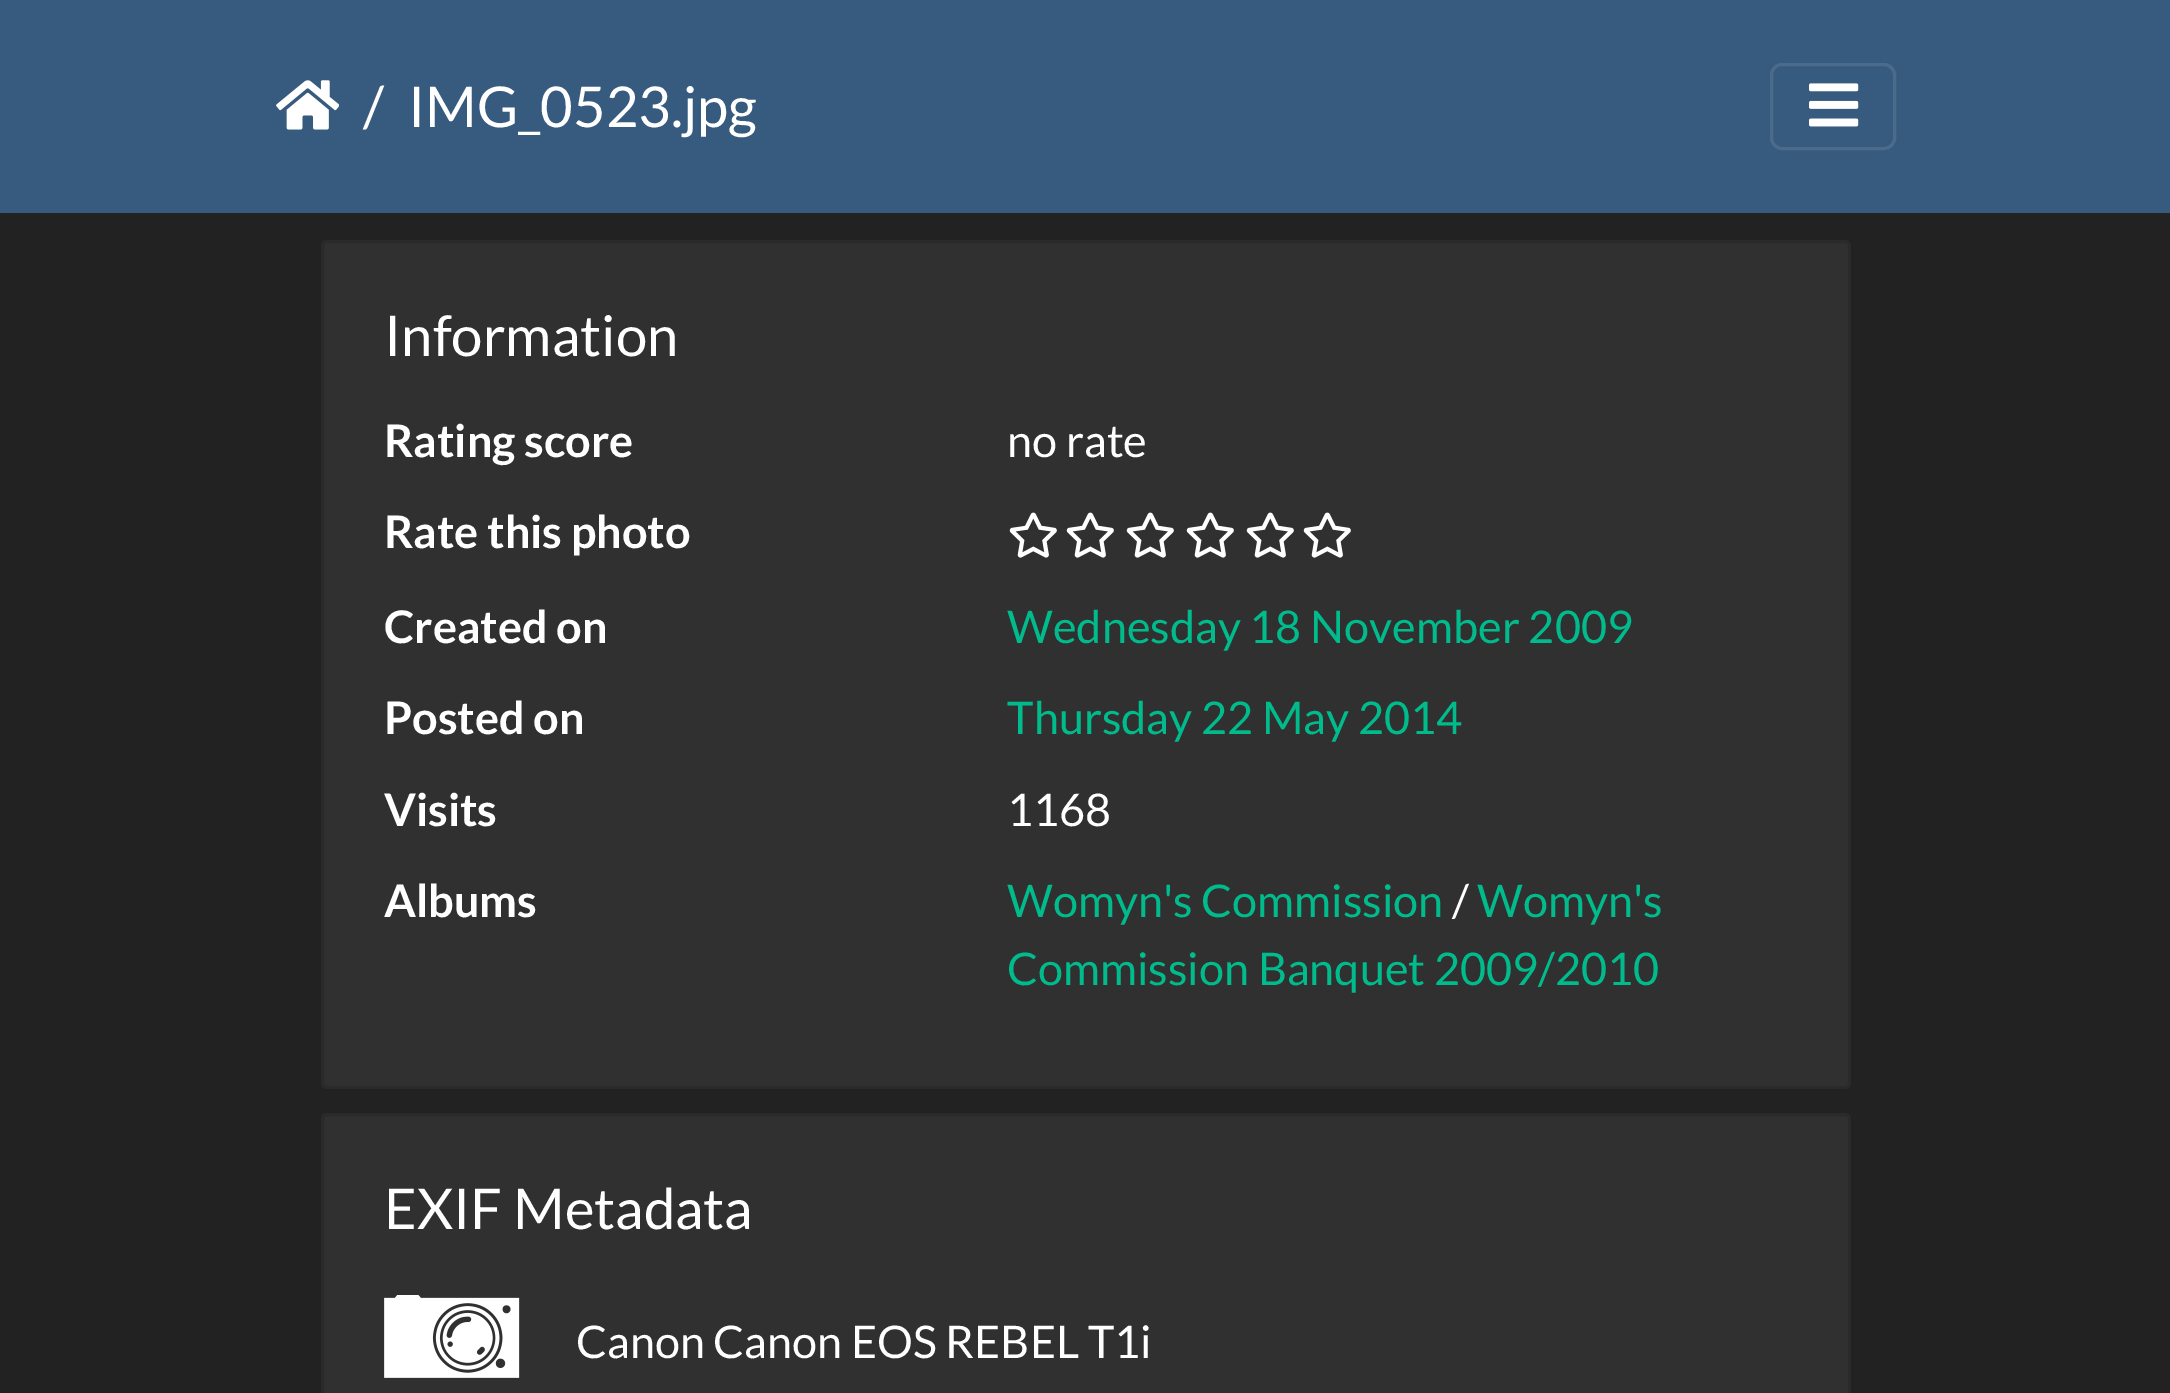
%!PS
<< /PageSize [2170 1393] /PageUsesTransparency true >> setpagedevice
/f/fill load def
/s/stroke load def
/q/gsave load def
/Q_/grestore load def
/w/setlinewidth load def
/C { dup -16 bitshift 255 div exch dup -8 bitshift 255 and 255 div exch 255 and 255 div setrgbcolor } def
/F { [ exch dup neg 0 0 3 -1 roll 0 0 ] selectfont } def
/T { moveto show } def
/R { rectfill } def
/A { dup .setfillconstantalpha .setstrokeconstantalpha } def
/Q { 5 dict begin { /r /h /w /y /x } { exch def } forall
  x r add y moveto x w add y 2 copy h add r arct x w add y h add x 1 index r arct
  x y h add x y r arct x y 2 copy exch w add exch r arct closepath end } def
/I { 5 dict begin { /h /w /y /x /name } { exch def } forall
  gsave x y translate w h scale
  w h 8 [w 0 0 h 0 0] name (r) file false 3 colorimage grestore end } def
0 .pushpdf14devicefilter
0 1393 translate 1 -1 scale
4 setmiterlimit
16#222222 C
0 0 2170 1393 R
16#375A7F C
0 0 2170 213 R
(1.rgb) 276 80 63 50 I
/Lato-Regular 56.25 F
16#FFFFFF C
(/) 363 127 T
q
339 63 417 84 rectclip
(IMG_0523.jpg) 408 127 T
Q_
16#4B6B8C C
3 w
1771.5 64.5 123 84 10.5 Q s
(2.rgb) 1809 83 50 44 I
16#303030 C
321 240 1530 849 6 Q f
0.12 A
16#000000 C
322.5 241.5 1527 846 4.5 Q s
1 A
16#FFFFFF C
(Information) 384 356 T
/Lato-Bold 45 F
(Rating score) 384 457 T
/Lato-Regular 45 F
(no rate) 1007 457 T
/Lato-Bold 45 F
(Rate this photo) 384 548 T
(3.rgb) 1009 512 48 46 I
(3.rgb) 1066 512 48 46 I
(3.rgb) 1126 512 48 46 I
(3.rgb) 1186 512 48 46 I
(3.rgb) 1246 512 48 46 I
(3.rgb) 1303 512 48 46 I
(Created on) 384 643 T
/Lato-Regular 45 F
16#00BC8C C
(Wednesday 18 November 2009) 1007 643 T
/Lato-Bold 45 F
16#FFFFFF C
(Posted on) 384 734 T
/Lato-Regular 45 F
16#00BC8C C
(Thursday 22 May 2014) 1007 734 T
/Lato-Bold 45 F
16#FFFFFF C
(Visits) 384 826 T
/Lato-Regular 45 F
(1168) 1007 826 T
/Lato-Bold 45 F
(Albums) 384 917 T
/Lato-Regular 45 F
16#00BC8C C
(Womyn's Commission) 1007 917 T
16#FFFFFF C
(/) 1452 917 T
16#00BC8C C
(Womyn's) 1477 917 T
(Commission Banquet 2009/2010) 1007 985 T
16#303030 C
321 1113 1530 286 6 Q f
0.12 A
16#000000 C
322.5 1114.5 1527 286 4.5 Q s
/Lato-Regular 56.25 F
1 A
16#FFFFFF C
(EXIF Metadata) 384 1229 T
(4.rgb) 384 1295 136 83 I
/Lato-Regular 45 F
(Canon Canon EOS REBEL T1i) 576 1358 T
.poppdf14devicefilter showpage
